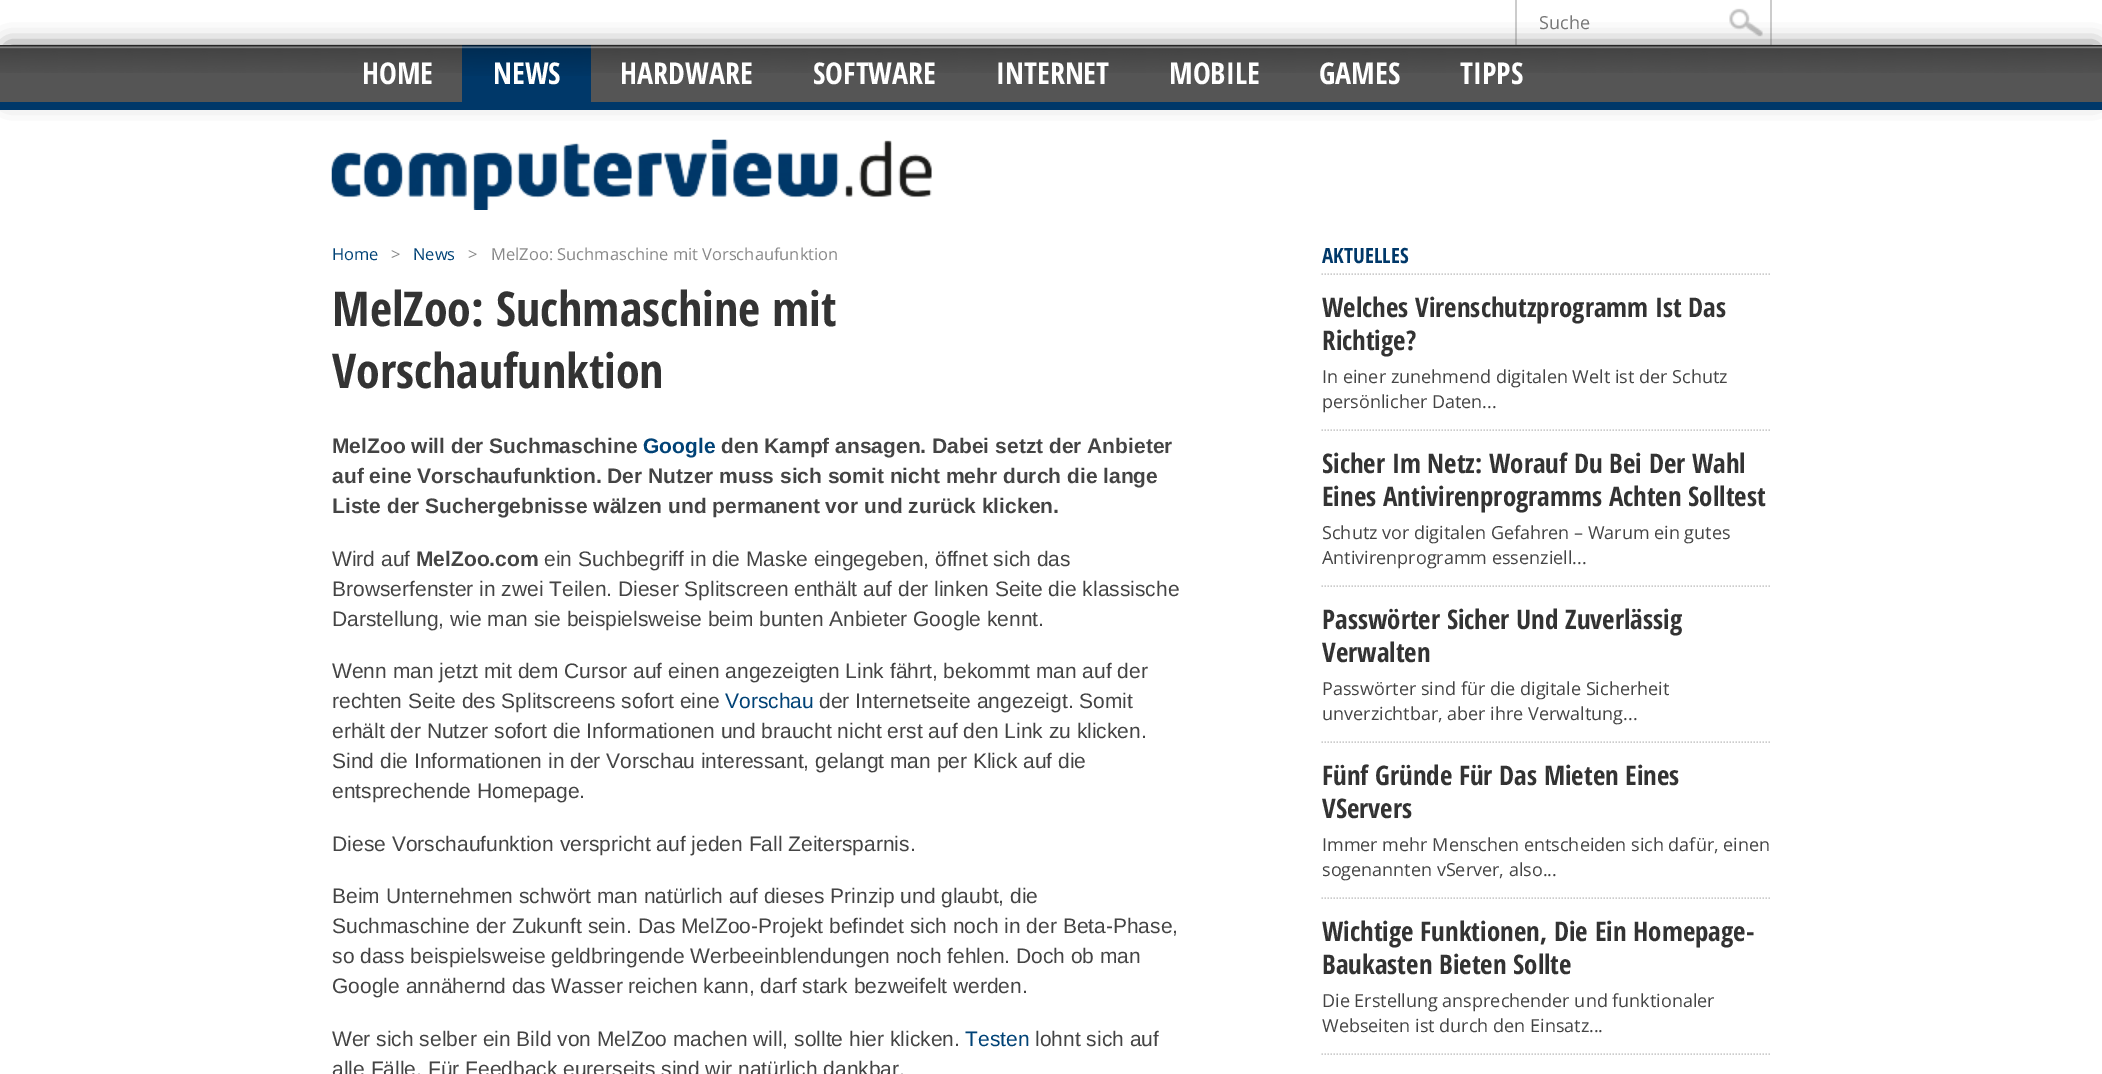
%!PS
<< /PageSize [2102 1074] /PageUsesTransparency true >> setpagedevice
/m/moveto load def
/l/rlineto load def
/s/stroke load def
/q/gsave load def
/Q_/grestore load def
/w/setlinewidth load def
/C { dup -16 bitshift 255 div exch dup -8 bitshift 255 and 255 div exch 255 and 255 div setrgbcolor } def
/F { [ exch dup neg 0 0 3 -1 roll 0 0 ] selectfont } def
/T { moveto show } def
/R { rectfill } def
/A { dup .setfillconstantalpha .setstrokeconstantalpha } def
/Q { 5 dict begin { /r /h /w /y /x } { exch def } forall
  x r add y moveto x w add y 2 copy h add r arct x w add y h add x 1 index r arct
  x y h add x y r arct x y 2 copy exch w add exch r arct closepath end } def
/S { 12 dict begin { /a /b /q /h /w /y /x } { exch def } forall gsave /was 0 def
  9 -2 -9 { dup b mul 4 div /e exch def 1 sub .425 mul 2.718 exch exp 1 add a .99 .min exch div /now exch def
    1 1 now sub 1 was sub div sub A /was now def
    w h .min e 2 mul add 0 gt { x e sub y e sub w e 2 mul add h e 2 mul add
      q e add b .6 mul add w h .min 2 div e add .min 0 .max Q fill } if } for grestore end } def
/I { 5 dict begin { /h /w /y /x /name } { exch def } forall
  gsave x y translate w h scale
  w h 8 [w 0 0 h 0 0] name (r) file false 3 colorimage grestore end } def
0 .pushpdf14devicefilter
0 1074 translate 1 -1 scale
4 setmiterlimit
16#FFFFFF C
0 0 2102 1074 R
16#CCCCCC C
1770 0 2 45 R
1515 0 2 45 R
(1.rgb) 1729 8 34 29 I
/OpenSans-Regular 18 F
16#777777 C
(Suche) 1539 29 T
16#555555 C
8 47 2088 49 0 11 1 S
0 45 2102 57 R
(2.rgb) 0 45 2102 28 I
16#003869 C
0 102 2102 8 R
/OpenSansCondensed-Bold 30 F
16#FFFFFF C
(HOME) 362 84 T
16#003869 C
462 45 129 57 R
(3.rgb) 462 45 129 31 I
16#FFFFFF C
(NEWS) 493 84 T
(HARDWARE) 620 84 T
(SOFTWARE) 813 84 T
(INTERNET) 996 84 T
(MOBILE) 1169 84 T
(GAMES) 1319 84 T
(TIPPS) 1460 84 T
(4.rgb) 331 139 601 71 I
/OpenSans-Regular 16.5 F
16#004276 C
(Home) 332 260 T
16#888888 C
(>) 391 260 T
16#004276 C
(News) 413 260 T
16#888888 C
(>) 468 260 T
(MelZoo: Suchmaschine mit Vorschaufunktion) 491 260 T
/OpenSansCondensed-Bold 48 F
16#333333 C
(MelZoo: Suchmaschine mit) 332 326 T
q
332 276 930 125 rectclip
(Vorschaufunktion) 332 388 T
Q_
/LiberationSans-Bold 21 F
16#444444 C
(MelZoo will der Suchmaschine) 332 453 T
16#004276 C
(Google) 643 453 T
16#444444 C
(den Kampf ansagen. Dabei setzt der Anbieter) 721 453 T
(auf eine Vorschaufunktion. Der Nutzer muss sich somit nicht mehr durch die lange) 332 483 T
(Liste der Suchergebnisse wälzen und permanent vor und zurück klicken.) 332 513 T
/LiberationSans-Regular 21 F
(Wird auf) 332 566 T
/LiberationSans-Bold 21 F
(MelZoo.com) 416 566 T
/LiberationSans-Regular 21 F
(ein Suchbegriff in die Maske eingegeben, öffnet sich das) 544 566 T
(Browserfenster in zwei Teilen. Dieser Splitscreen enthält auf der linken Seite die klassische) 332 596 T
(Darstellung, wie man sie beispielsweise beim bunten Anbieter Google kennt.) 332 626 T
(Wenn man jetzt mit dem Cursor auf einen angezeigten Link fährt, bekommt man auf der) 332 678 T
(rechten Seite des Splitscreens sofort eine) 332 708 T
16#004276 C
(Vorschau) 725 708 T
16#444444 C
(der Internetseite angezeigt. Somit) 819 708 T
(erhält der Nutzer sofort die Informationen und braucht nicht erst auf den Link zu klicken.) 332 738 T
(Sind die Informationen in der Vorschau interessant, gelangt man per Klick auf die) 332 768 T
(entsprechende Homepage.) 332 798 T
(Diese Vorschaufunktion verspricht auf jeden Fall Zeitersparnis.) 332 851 T
(Beim Unternehmen schwört man natürlich auf dieses Prinzip und glaubt, die) 332 903 T
(Suchmaschine der Zukunft sein. Das MelZoo-Projekt befindet sich noch in der Beta-Phase,) 332 933 T
(so dass beispielsweise geldbringende Werbeeinblendungen noch fehlen. Doch ob man) 332 963 T
(Google annähernd das Wasser reichen kann, darf stark bezweifelt werden.) 332 993 T
(Wer sich selber ein Bild von MelZoo machen will, sollte hier klicken.) 332 1046 T
16#004276 C
(Testen) 965 1046 T
16#444444 C
(lohnt sich auf) 1035 1046 T
(alle Fälle. Für Feedback eurerseits sind wir natürlich dankbar.) 332 1076 T
16#CCCCCC C
1.5 w
[1.5 1.5] 0 setdash
1321.5 274 m 450 0 l s
/OpenSansCondensed-Bold 21 F
16#003869 C
(AKTUELLES) 1322 263 T
16#CCCCCC C
1321.5 430 m 450 0 l s
/OpenSansCondensed-Bold 27 F
16#333333 C
(Welches Virenschutzprogramm Ist Das) 1322 317 T
(Richtige?) 1322 350 T
/OpenSans-Regular 18 F
16#444444 C
(In einer zunehmend digitalen Welt ist der Schutz) 1322 383 T
(persönlicher Daten...) 1322 408 T
16#CCCCCC C
1321.5 586 m 450 0 l s
/OpenSansCondensed-Bold 27 F
16#333333 C
(Sicher Im Netz: Worauf Du Bei Der Wahl) 1322 473 T
(Eines Antivirenprogramms Achten Solltest) 1322 506 T
/OpenSans-Regular 18 F
16#444444 C
(Schutz vor digitalen Gefahren – Warum ein gutes) 1322 539 T
(Antivirenprogramm essenziell...) 1322 564 T
16#CCCCCC C
1321.5 742 m 450 0 l s
/OpenSansCondensed-Bold 27 F
16#333333 C
(Passwörter Sicher Und Zuverlässig) 1322 629 T
q
1322 245 450 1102 rectclip
(Verwalten) 1322 662 T
Q_
/OpenSans-Regular 18 F
16#444444 C
(Passwörter sind für die digitale Sicherheit) 1322 695 T
(unverzichtbar, aber ihre Verwaltung...) 1322 720 T
16#CCCCCC C
1321.5 898 m 450 0 l s
/OpenSansCondensed-Bold 27 F
16#333333 C
(Fünf Gründe Für Das Mieten Eines) 1322 785 T
q
1322 245 450 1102 rectclip
(VServers) 1322 818 T
Q_
/OpenSans-Regular 18 F
16#444444 C
(Immer mehr Menschen entscheiden sich dafür, einen) 1322 851 T
(sogenannten vServer, also...) 1322 876 T
16#CCCCCC C
1321.5 1054 m 450 0 l s
/OpenSansCondensed-Bold 27 F
16#333333 C
(Wichtige Funktionen, Die Ein Homepage-) 1322 941 T
(Baukasten Bieten Sollte) 1322 974 T
/OpenSans-Regular 18 F
16#444444 C
(Die Erstellung ansprechender und funktionaler) 1322 1007 T
(Webseiten ist durch den Einsatz...) 1322 1032 T
.poppdf14devicefilter showpage
